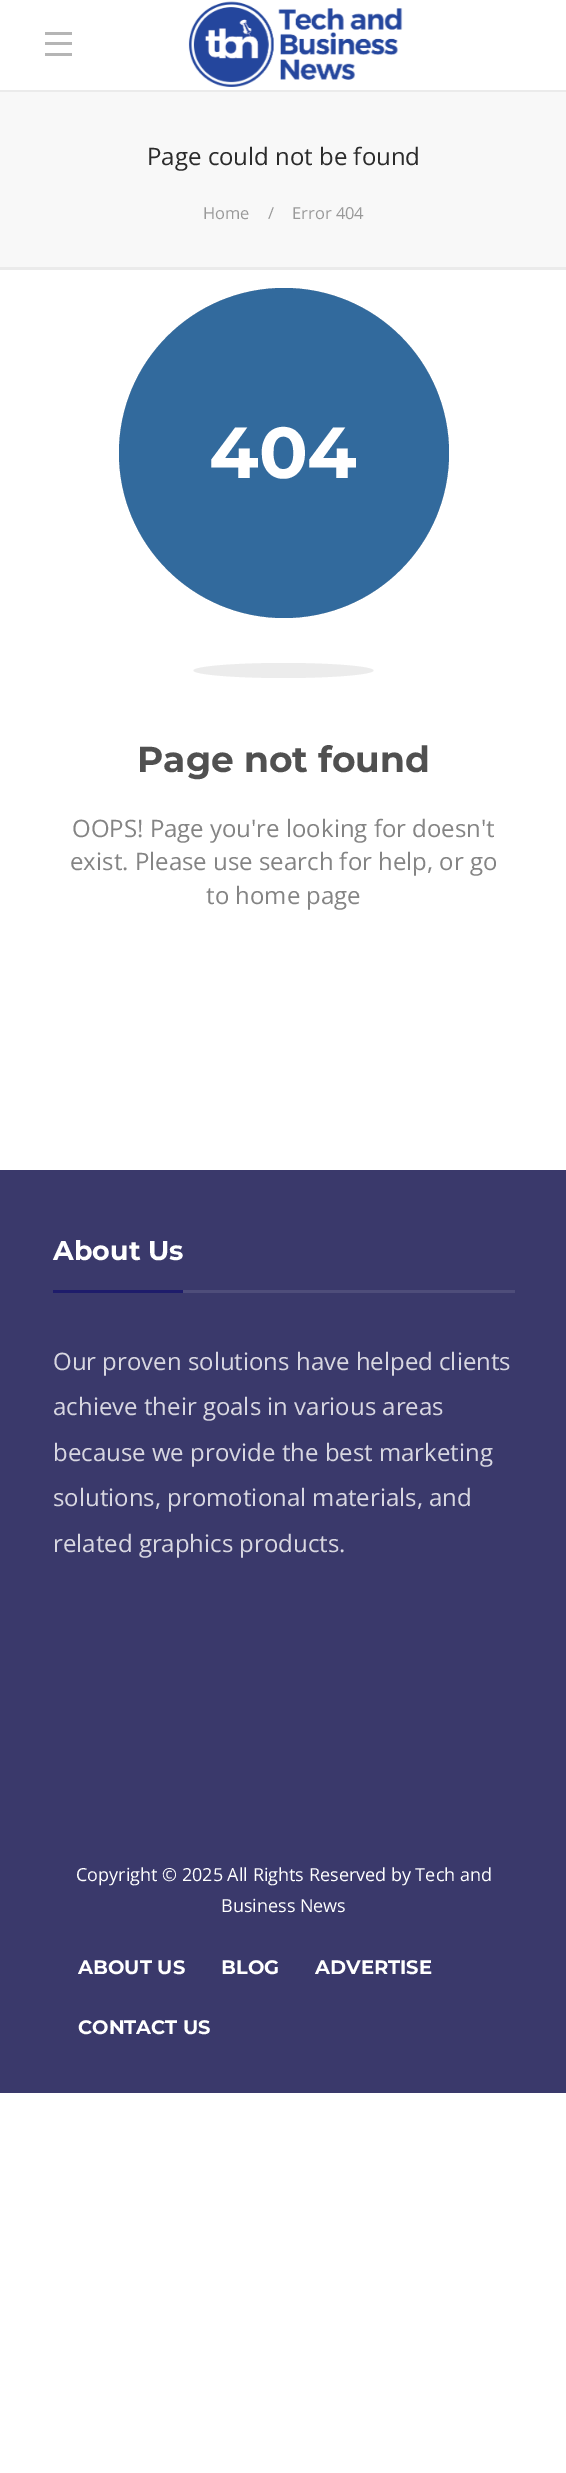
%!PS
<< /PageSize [566 2473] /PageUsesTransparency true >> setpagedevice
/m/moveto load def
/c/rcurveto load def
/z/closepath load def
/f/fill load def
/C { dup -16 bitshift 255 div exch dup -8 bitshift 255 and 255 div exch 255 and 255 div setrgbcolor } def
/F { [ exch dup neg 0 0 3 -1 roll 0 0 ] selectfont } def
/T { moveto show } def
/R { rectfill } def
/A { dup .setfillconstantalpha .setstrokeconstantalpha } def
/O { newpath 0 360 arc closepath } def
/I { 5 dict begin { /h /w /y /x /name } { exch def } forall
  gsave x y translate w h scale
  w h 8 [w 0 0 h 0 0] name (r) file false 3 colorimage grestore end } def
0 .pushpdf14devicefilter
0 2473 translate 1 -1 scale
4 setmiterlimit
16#FFFFFF C
0 0 566 2473 R
16#B5B5B5 C
45 32 27 3 R
45 42 27 3 R
45 53 27 3 R
(1.rgb) 188 1 215 86 I
16#F8F8F8 C
0 92 566 175 R
16#EBEBEB C
0 90 566 2 R
0 267 566 3 R
/OpenSans-Regular 24 F
16#2B2B2B C
(Page could not be found) 147 165 T
/OpenSans-Regular 16.5 F
16#999999 C
(Home) 203 219 T
(/) 268 219 T
(Error 404) 292 219 T
16#CCCCCC C
284 453 165 O f
0.8 A
16#0B5191 C
284 453 165 O f
/Montserrat-Thin 72 F
1 A
16#FFFFFF C
(404) 209 478 T
16#ECECEC C
283.5 663 m 49.5 0 90 3.5 90 7.5 c 0 4 -40.5 7.5 -90 7.5 c -49.5 0 -90 -3.5 -90 -7.5 c 0 -4 40.5 -7.5 90 -7.5 c z f
/Montserrat-Thin 36 F
16#505050 C
(Page not found) 137 772 T
/OpenSans-Regular 24 F
16#848484 C
(OOPS! Page you're looking for doesn't) 72 837 T
(exist. Please use search for help, or go) 70 870 T
(to home page) 206 904 T
16#3A396B C
0 1170 566 923 R
16#4E4D7A C
183 1290 332 3 R
16#1E1C6B C
53 1290 130 3 R
/Montserrat-Thin 27 F
16#FFFFFF C
(About Us) 53 1260 T
/OpenSans-Regular 24 F
16#D8D7E1 C
(Our proven solutions have helped clients) 53 1370 T
(achieve their goals in various areas) 53 1415 T
(because we provide the best marketing) 53 1461 T
(solutions, promotional materials, and) 53 1506 T
(related graphics products.) 53 1552 T
/OpenSans-Regular 18 F
16#FFFFFF C
(Copyright © 2025 All Rights Reserved by Tech and) 76 1881 T
(Business News) 221 1912 T
/Montserrat-Thin 19.5 F
(ABOUT US) 78 1974 T
(BLOG) 221 1974 T
(ADVERTISE) 315 1974 T
(CONTACT US) 78 2034 T
.poppdf14devicefilter showpage
